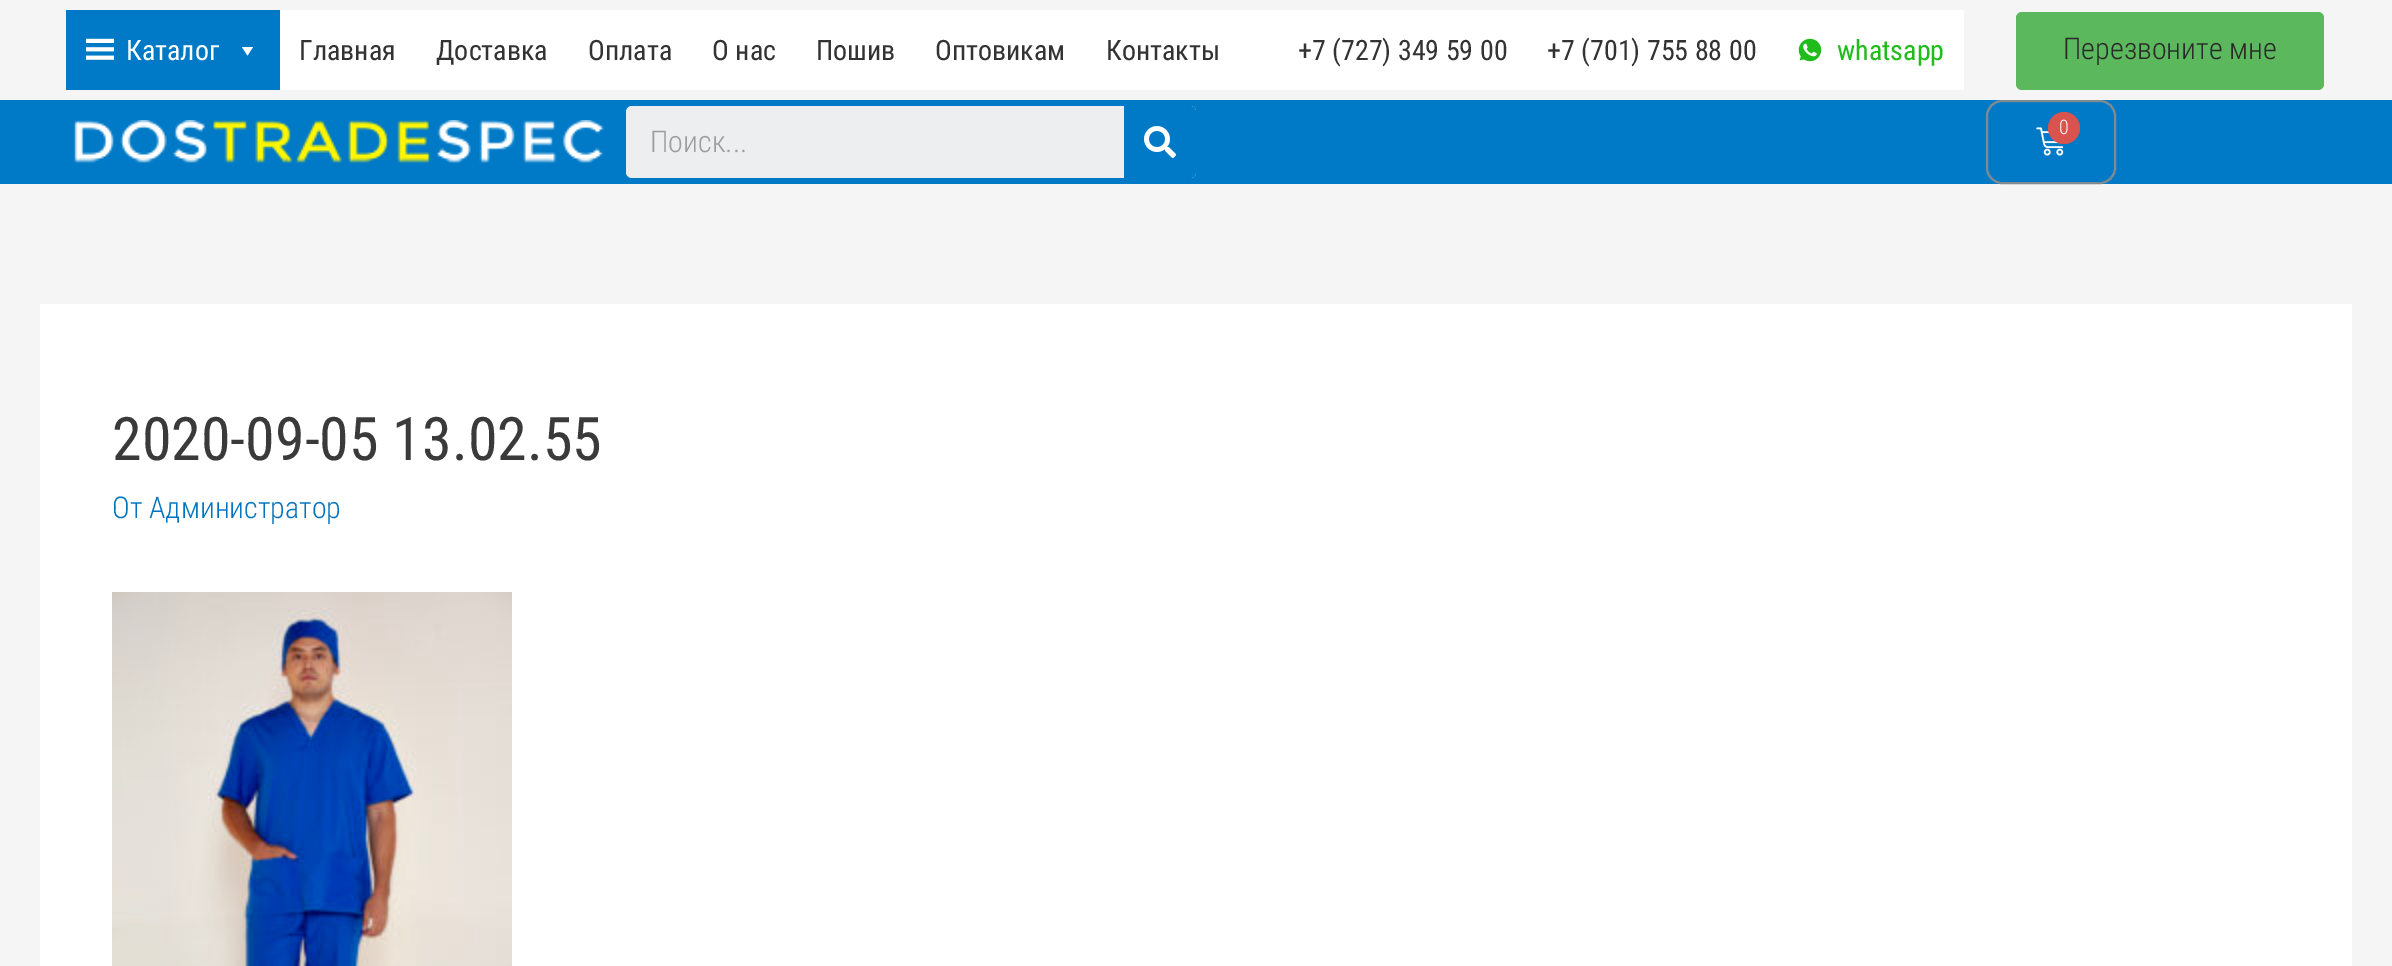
%!PS
<< /PageSize [2392 966] >> setpagedevice
/m/moveto load def
/l/rlineto load def
/c/rcurveto load def
/z/closepath load def
/f/fill load def
/s/stroke load def
/w/setlinewidth load def
/C { dup -16 bitshift 255 div exch dup -8 bitshift 255 and 255 div exch 255 and 255 div setrgbcolor } def
/F { [ exch dup neg 0 0 3 -1 roll 0 0 ] selectfont } def
/T { moveto show } def
/R { rectfill } def
/O { newpath 0 360 arc closepath } def
/Q { 5 dict begin { /r /h /w /y /x } { exch def } forall
  x r add y moveto x w add y 2 copy h add r arct x w add y h add x 1 index r arct
  x y h add x y r arct x y 2 copy exch w add exch r arct closepath end } def
/I { 5 dict begin { /h /w /y /x /name } { exch def } forall
  gsave x y translate w h scale
  w h 8 [w 0 0 h 0 0] name (r) file false 3 colorimage grestore end } def
0 966 translate 1 -1 scale
4 setmiterlimit
16#F5F5F5 C
0 0 2392 966 R
16#FFFFFF C
280 10 1684 80 R
16#007AC7 C
66 10 214 80 R
(1.rgb) 86 38 28 22 I
/RobotoCondensed-Regular 28 F
16#FFFFFF C
(Каталог) 126 60 T
253 47 m -5.5 8.5 l -5.5 -8.5 l z f
16#333333 C
(Главная) 299 60 T
(Доставка) 436 60 T
(Оплата) 588 60 T
(О нас) 712 60 T
(Пошив) 816 60 T
(Оптовикам) 935 60 T
(Контакты) 1106 60 T
(+7 \(727\) 349 59 00) 1298 60 T
(+7 \(701\) 755 88 00) 1547 60 T
(2.rgb) 1798 38 24 24 I
16#20BC1A C
(whatsapp) 1837 60 T
16#5CB85C C
2016 12 308 78 6 Q f
/RobotoCondensed-Light 30 F
16#2A2A2A C
(Перезвоните мне) 2063 59 T
16#007AC7 C
0 100 2392 84 R
(3.rgb) 74 120 530 43 I
16#ECEEEF C
626 106 570 72 6 Q f
16#9C9C9D C
(Поиск...) 650 152 T
16#007AC7 C
1124 106 m 66 0 l 3.5 0 6 2.5 6 6 c 0 60 l 0 3.5 -2.5 6 -6 6 c -66 0 l z f
(4.rgb) 1144 126 32 32 I
16#818A91 C
2 w
1987 101 128 82 15 Q s
(5.rgb) 2036 127 28 29 I
16#D9534F C
2064 128 16 O f
/RobotoCondensed-Light 20 F
16#FFFFFF C
(0) 2059 134 T
40 304 2312 662 R
/RobotoCondensed-Regular 60 F
16#3A3A3A C
(2020-09-05 13.02.55) 112 460 T
/RobotoCondensed-Light 30 F
16#0274BE C
(От Администратор) 112 518 T
(6.rgb) 112 592 400 374 I
showpage
